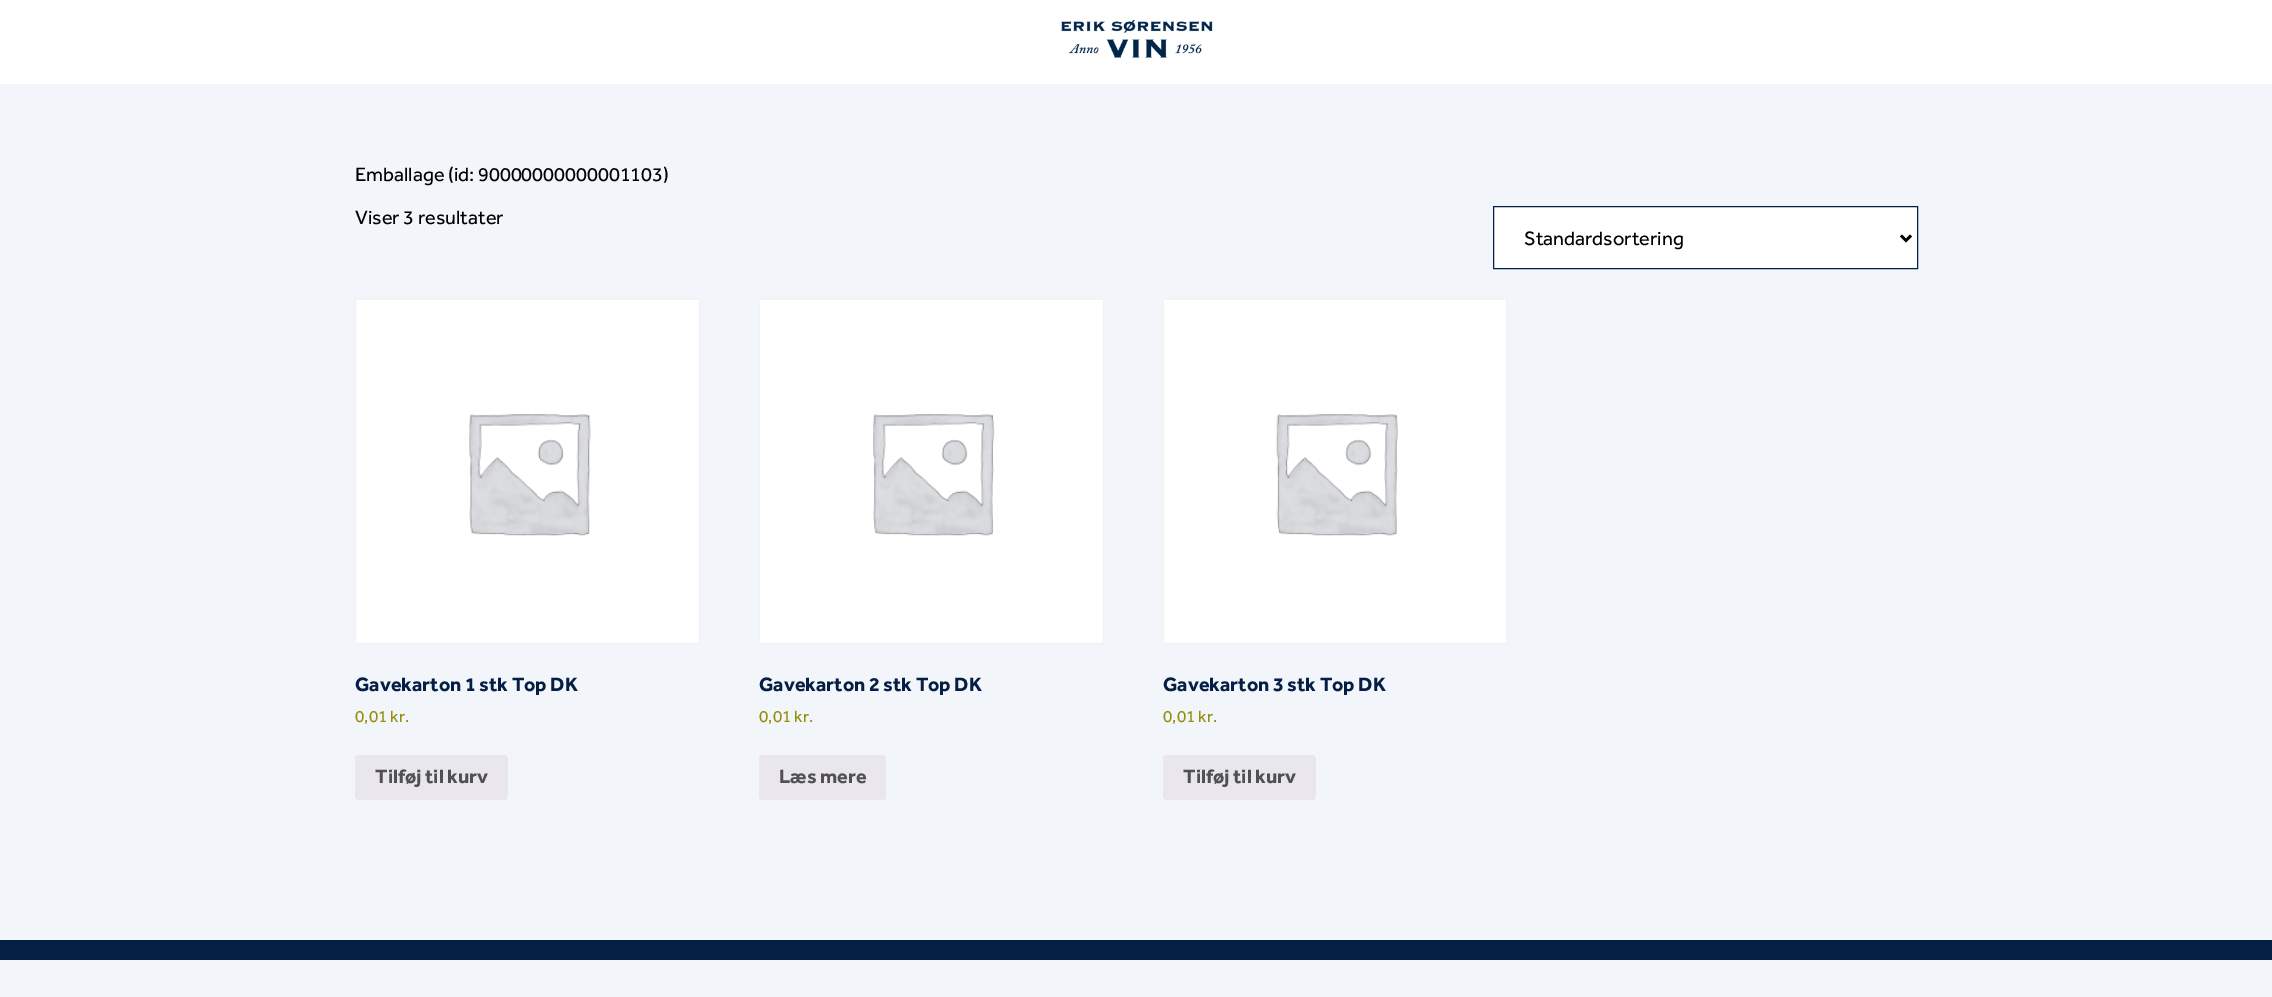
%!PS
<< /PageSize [2272 997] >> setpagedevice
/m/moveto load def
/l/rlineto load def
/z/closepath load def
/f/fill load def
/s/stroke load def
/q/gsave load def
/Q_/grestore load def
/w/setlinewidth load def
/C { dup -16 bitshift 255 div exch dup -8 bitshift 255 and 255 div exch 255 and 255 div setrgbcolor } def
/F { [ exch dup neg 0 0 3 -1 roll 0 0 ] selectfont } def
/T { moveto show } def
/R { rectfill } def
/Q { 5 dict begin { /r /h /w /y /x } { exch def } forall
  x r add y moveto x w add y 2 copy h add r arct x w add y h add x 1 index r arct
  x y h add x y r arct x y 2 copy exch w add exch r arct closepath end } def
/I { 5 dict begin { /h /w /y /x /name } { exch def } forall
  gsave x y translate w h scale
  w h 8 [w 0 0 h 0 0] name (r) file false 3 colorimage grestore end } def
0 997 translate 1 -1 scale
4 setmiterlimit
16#F2F6FB C
0 0 2272 997 R
16#FFFFFF C
0 0 2272 84 R
(1.rgb) 1061 20 152 38 I
/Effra-Regular 20 F
16#000000 C
(Emballage \(id: 90000000000001103\)) 355 181 T
(Viser 3 resultater) 355 224 T
16#FFFFFF C
1493.5 206.5 m 424 0 l 0 62 l -424 0 l z q f Q_
16#051E44 C
s
16#000000 C
2.5 w
1901 235.5 m 5 5 l 5 -5 l s
(Standardsortering) 1524 245 T
16#F2F2F2 C
1 w
355.5 299.5 344 344 rectstroke
(2.rgb) 356 300 343 343 I
/Effra-Bold 20 F
16#051E44 C
(Gavekarton 1 stk Top DK) 355 691 T
/Effra-Regular 17 F
16#958E09 C
(0,01 kr.) 355 722 T
16#E9E6ED C
355 755 153 45 4 Q f
/Effra-Bold 20 F
16#515151 C
(Tilføj til kurv) 375 783 T
16#F2F2F2 C
759.5 299.5 344 344 rectstroke
(3.rgb) 760 300 343 343 I
16#051E44 C
(Gavekarton 2 stk Top DK) 759 691 T
/Effra-Regular 17 F
16#958E09 C
(0,01 kr.) 759 722 T
16#E9E6ED C
759 755 127 45 4 Q f
/Effra-Bold 20 F
16#515151 C
(Læs mere) 779 783 T
16#F2F2F2 C
1163.5 299.5 344 344 rectstroke
(4.rgb) 1164 300 342 343 I
16#051E44 C
(Gavekarton 3 stk Top DK) 1163 691 T
/Effra-Regular 17 F
16#958E09 C
(0,01 kr.) 1163 722 T
16#E9E6ED C
1163 755 153 45 4 Q f
/Effra-Bold 20 F
16#515151 C
(Tilføj til kurv) 1183 783 T
16#051E44 C
0 940 2272 20 R
showpage
